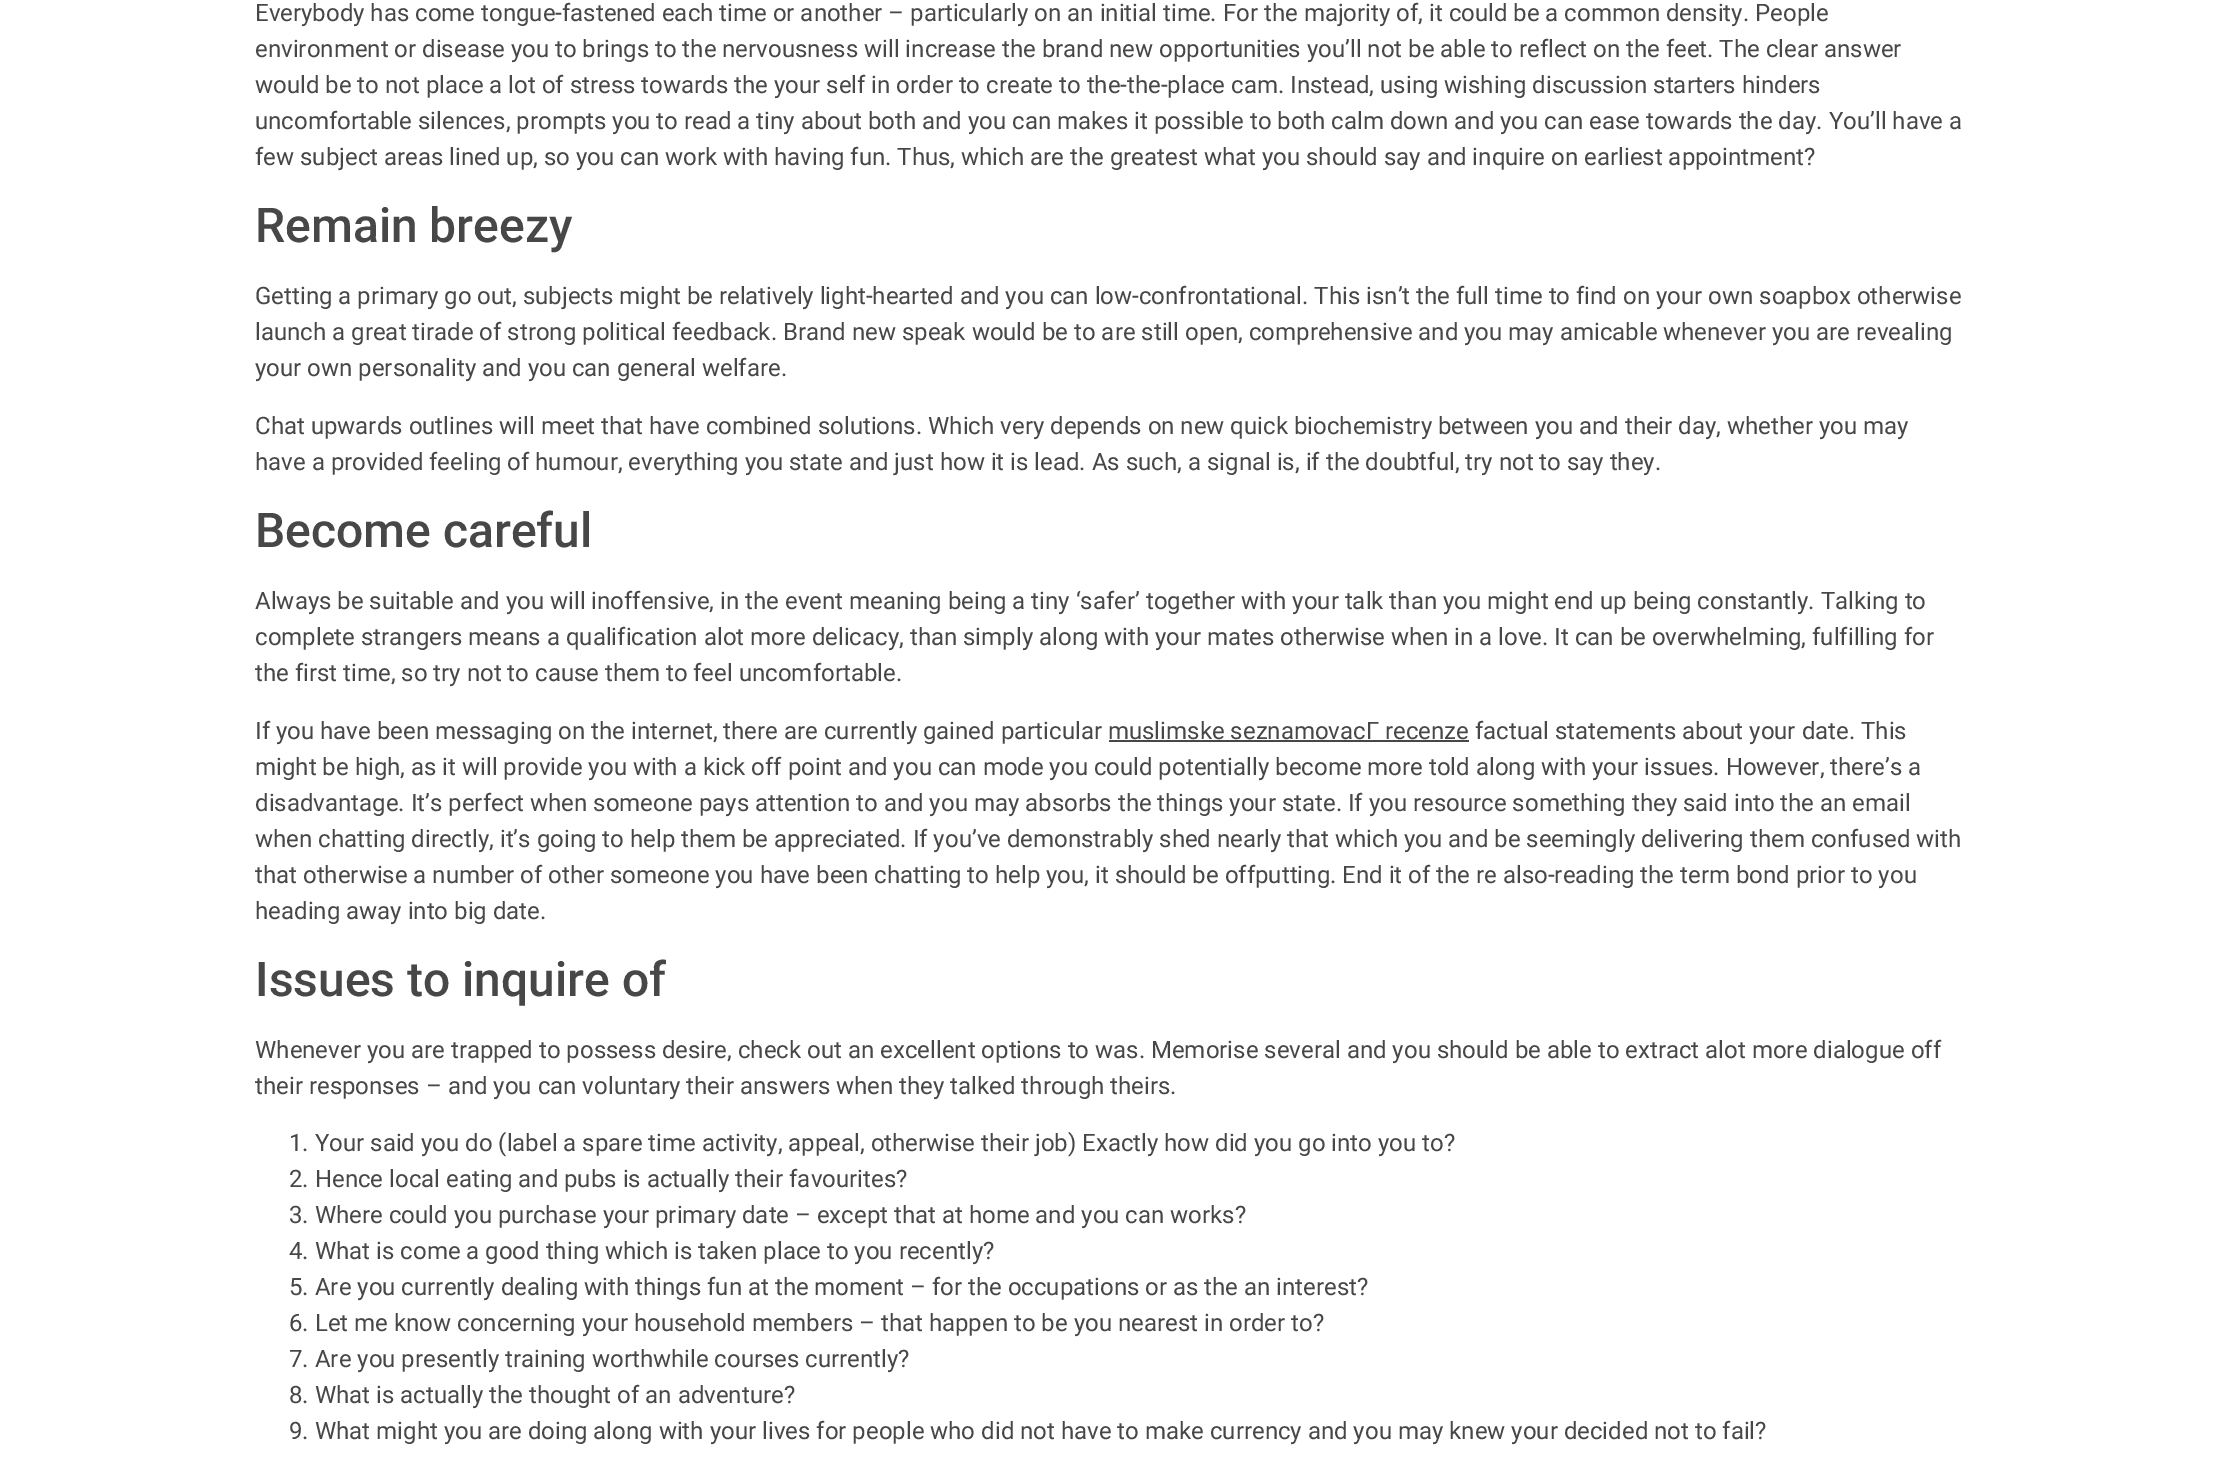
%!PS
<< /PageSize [2219 1466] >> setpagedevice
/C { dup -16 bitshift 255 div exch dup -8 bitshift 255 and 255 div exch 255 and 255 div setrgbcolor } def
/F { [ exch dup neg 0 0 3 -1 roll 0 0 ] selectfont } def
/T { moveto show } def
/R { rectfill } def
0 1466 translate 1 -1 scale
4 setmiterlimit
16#FFFFFF C
0 0 2219 1466 R
/Roboto-Regular 24 F
16#474747 C
(Everybody has come tongue-fastened each time or another – particularly on an initial time. For the majority of, it could be a common density. People) 255 21 T
(environment or disease you to brings to the nervousness will increase the brand new opportunities you’ll not be able to reflect on the feet. The clear answer) 255 57 T
(would be to not place a lot of stress towards the your self in order to create to the-the-place cam. Instead, using wishing discussion starters hinders) 255 93 T
(uncomfortable silences, prompts you to read a tiny about both and you can makes it possible to both calm down and you can ease towards the day. You’ll have a) 255 129 T
(few subject areas lined up, so you can work with having fun. Thus, which are the greatest what you should say and inquire on earliest appointment?) 255 165 T
/Roboto-Medium 48 F
(Remain breezy) 255 242 T
/Roboto-Regular 24 F
(Getting a primary go out, subjects might be relatively light-hearted and you can low-confrontational. This isn’t the full time to find on your own soapbox otherwise) 255 304 T
(launch a great tirade of strong political feedback. Brand new speak would be to are still open, comprehensive and you may amicable whenever you are revealing) 255 340 T
(your own personality and you can general welfare.) 255 376 T
(Chat upwards outlines will meet that have combined solutions. Which very depends on new quick biochemistry between you and their day, whether you may) 255 434 T
(have a provided feeling of humour, everything you state and just how it is lead. As such, a signal is, if the doubtful, try not to say they.) 255 470 T
/Roboto-Medium 48 F
(Become careful) 255 547 T
/Roboto-Regular 24 F
(Always be suitable and you will inoffensive, in the event meaning being a tiny ‘safer’ together with your talk than you might end up being constantly. Talking to) 255 609 T
(complete strangers means a qualification alot more delicacy, than simply along with your mates otherwise when in a love. It can be overwhelming, fulfilling for) 255 645 T
(the first time, so try not to cause them to feel uncomfortable.) 255 681 T
(If you have been messaging on the internet, there are currently gained particular muslimske seznamovacГ recenze factual statements about your date. This) 255 739 T
1109 740 360 2 R
(might be high, as it will provide you with a kick off point and you can mode you could potentially become more told along with your issues. However, there’s a) 255 775 T
(disadvantage. It’s perfect when someone pays attention to and you may absorbs the things your state. If you resource something they said into the an email) 255 811 T
(when chatting directly, it’s going to help them be appreciated. If you’ve demonstrably shed nearly that which you and be seemingly delivering them confused with) 255 847 T
(that otherwise a number of other someone you have been chatting to help you, it should be offputting. End it of the re also-reading the term bond prior to you) 255 883 T
(heading away into big date.) 255 919 T
/Roboto-Medium 48 F
(Issues to inquire of) 255 996 T
/Roboto-Regular 24 F
(Whenever you are trapped to possess desire, check out an excellent options to was. Memorise several and you should be able to extract alot more dialogue off) 255 1058 T
(their responses – and you can voluntary their answers when they talked through theirs.) 255 1094 T
(1. Your said you do \(label a spare time activity, appeal, otherwise their job\) Exactly how did you go into you to?) 289 1151 T
(2. Hence local eating and pubs is actually their favourites?) 289 1187 T
(3. Where could you purchase your primary date – except that at home and you can works?) 289 1223 T
(4. What is come a good thing which is taken place to you recently?) 289 1259 T
(5. Are you currently dealing with things fun at the moment – for the occupations or as the an interest?) 289 1295 T
(6. Let me know concerning your household members – that happen to be you nearest in order to?) 289 1331 T
(7. Are you presently training worthwhile courses currently?) 289 1367 T
(8. What is actually the thought of an adventure?) 289 1403 T
(9. What might you are doing along with your lives for people who did not have to make currency and you may knew your decided not to fail?) 289 1439 T
showpage
